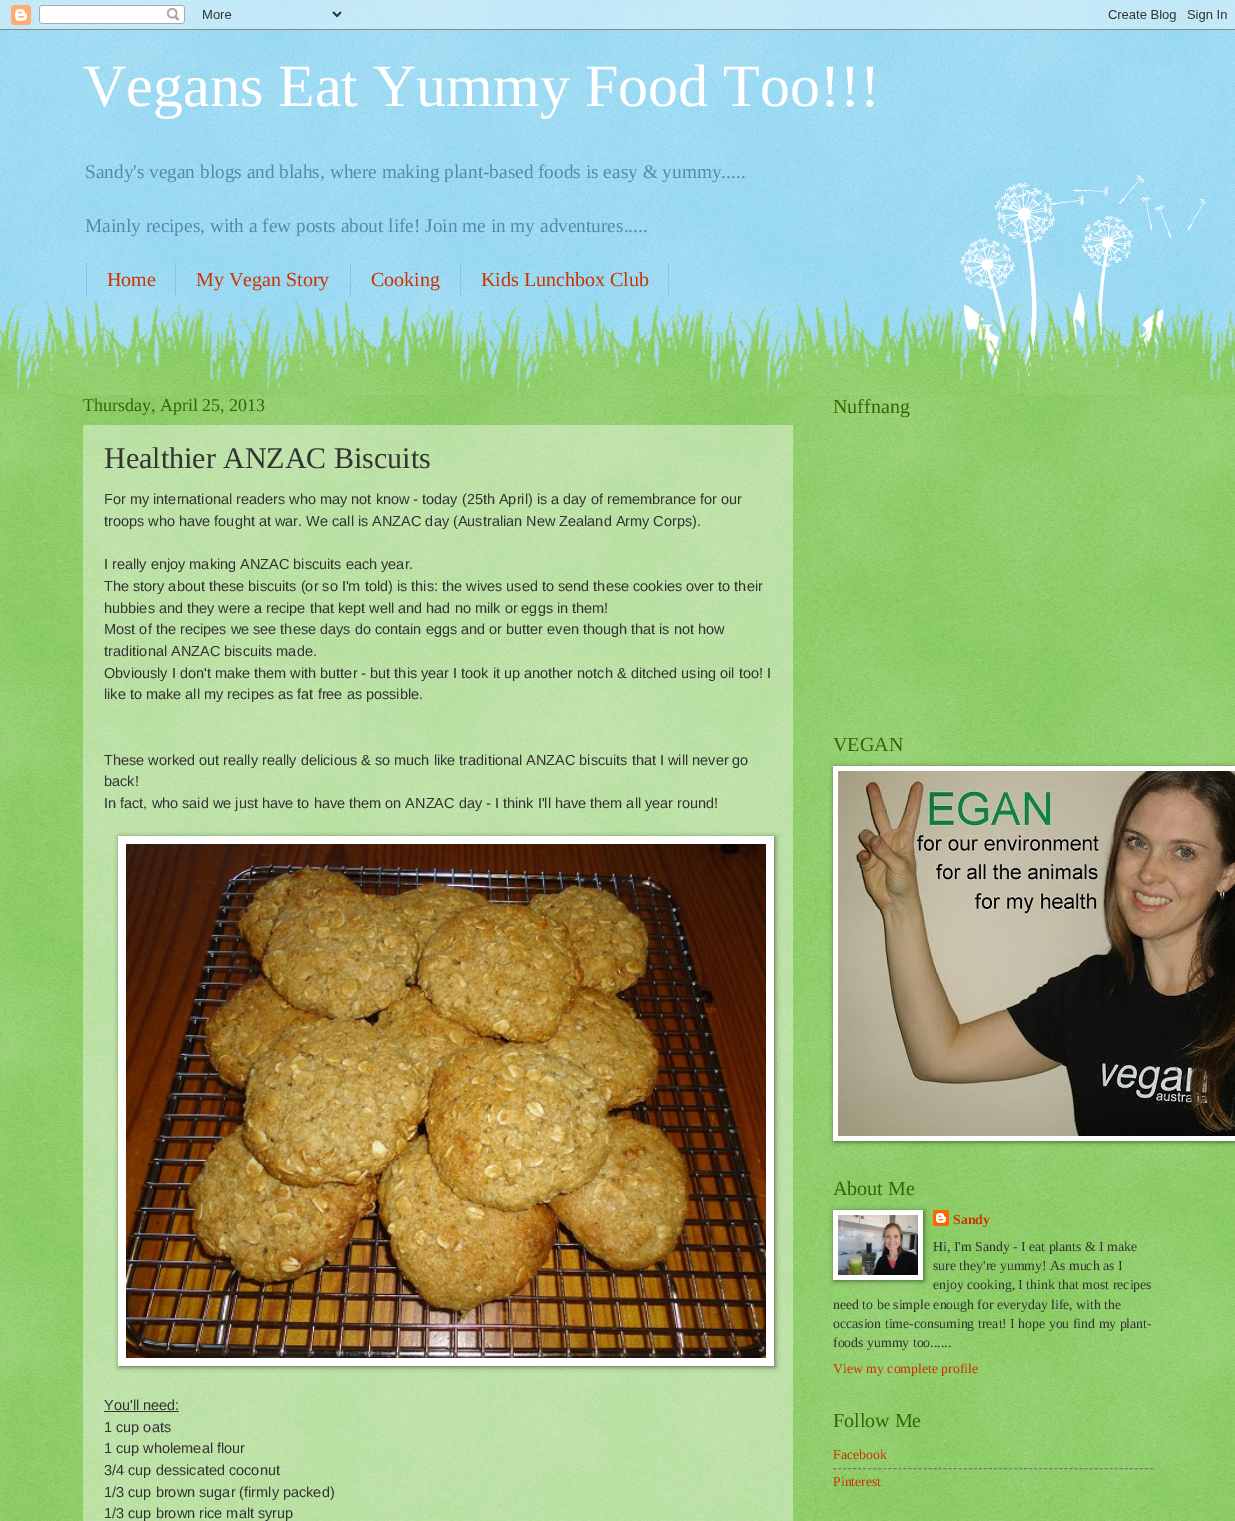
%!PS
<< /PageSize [1235 1521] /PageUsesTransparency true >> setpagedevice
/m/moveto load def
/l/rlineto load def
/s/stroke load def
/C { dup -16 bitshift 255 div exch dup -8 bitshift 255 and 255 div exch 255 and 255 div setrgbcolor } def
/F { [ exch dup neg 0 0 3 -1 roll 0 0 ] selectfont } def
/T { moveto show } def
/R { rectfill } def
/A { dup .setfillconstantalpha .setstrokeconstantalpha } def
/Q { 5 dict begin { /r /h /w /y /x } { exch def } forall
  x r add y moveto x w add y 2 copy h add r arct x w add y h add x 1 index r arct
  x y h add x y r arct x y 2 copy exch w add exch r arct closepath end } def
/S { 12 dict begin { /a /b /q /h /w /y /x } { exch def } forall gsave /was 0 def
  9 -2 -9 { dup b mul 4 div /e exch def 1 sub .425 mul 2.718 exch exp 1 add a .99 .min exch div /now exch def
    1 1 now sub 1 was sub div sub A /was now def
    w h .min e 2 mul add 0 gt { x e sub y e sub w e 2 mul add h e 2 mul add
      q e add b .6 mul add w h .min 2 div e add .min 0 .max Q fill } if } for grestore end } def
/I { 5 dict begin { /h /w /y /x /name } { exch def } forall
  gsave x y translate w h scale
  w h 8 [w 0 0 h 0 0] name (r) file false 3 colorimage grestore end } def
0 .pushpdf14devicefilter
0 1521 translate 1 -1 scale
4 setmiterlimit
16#77CCEE C
0 0 1235 1521 R
(1.rgb) 0 0 1235 390 I
(2.rgb) 0 0 1235 30 I
/LiberationSerif-Regular 60 F
16#FFFFFF C
(Vegans Eat Yummy Food Too!!!) 83 106 T
/LiberationSerif-Regular 19.3 F
16#5588AA C
(Sandy's vegan blogs and blahs, where making plant-based foods is easy & yummy.....) 85 178 T
(Mainly recipes, with a few posts about life! Join me in my adventures.....) 85 232 T
16#77CCEE C
175 263 1 33 R
86 263 1 33 R
/LiberationSerif-Regular 20 F
16#CC3300 C
(Home) 107 286 T
16#77CCEE C
350 263 1 33 R
16#CC3300 C
(My Vegan Story) 196 286 T
16#77CCEE C
460 263 1 33 R
16#CC3300 C
(Cooking) 371 286 T
16#77CCEE C
668 263 1 33 R
16#CC3300 C
(Kids Lunchbox Club) 481 286 T
16#66BB33 C
0 395 1235 1126 R
(3.rgb) 0 395 1235 1126 I
(4.rgb) 955 175 250 215 I
(5.rgb) 0 299 1235 96 I
/LiberationSerif-Regular 18 F
16#336600 C
(Thursday, April 25, 2013) 83 411 T
0.4 A
16#FFFFFF C
83 425 710 1096 R
/LiberationSerif-Regular 30 F
1 A
16#333333 C
(Healthier ANZAC Biscuits) 104 468 T
/LiberationSans-Regular 14.5 F
(For my international readers who may not know - today \(25th April\) is a day of remembrance for our) 104 504 T
(troops who have fought at war. We call is ANZAC day \(Australian New Zealand Army Corps\).) 104 526 T
(I really enjoy making ANZAC biscuits each year.) 104 569 T
(The story about these biscuits \(or so I'm told\) is this: the wives used to send these cookies over to their) 104 591 T
(hubbies and they were a recipe that kept well and had no milk or eggs in them!) 104 613 T
(Most of the recipes we see these days do contain eggs and or butter even though that is not how) 104 634 T
(traditional ANZAC biscuits made.) 104 656 T
(Obviously I don't make them with butter - but this year I took it up another notch & ditched using oil too! I) 104 678 T
(like to make all my recipes as fat free as possible.) 104 699 T
(These worked out really really delicious & so much like traditional ANZAC biscuits that I will never go) 104 765 T
(back!) 104 786 T
(In fact, who said we just have to have them on ANZAC day - I think I'll have them all year round!) 104 808 T
16#000000 C
119 837 656 530 0 2.5 .5 S
16#FFFFFF C
118 836 656 530 R
(6.rgb) 126 844 640 514 I
16#333333 C
(You'll need:) 104 1410 T
104 1411 75 1 R
(1 cup oats) 104 1432 T
(1 cup wholemeal flour) 104 1453 T
(3/4 cup dessicated coconut) 104 1475 T
(1/3 cup brown sugar \(firmly packed\)) 104 1497 T
(1/3 cup brown rice malt syrup) 104 1518 T
/LiberationSerif-Regular 20 F
16#336600 C
(Nuffnang) 833 413 T
(VEGAN) 833 751 T
16#000000 C
834 767 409 375 0 2.5 .5 S
16#FFFFFF C
833 766 402 375 R
(7.rgb) 838 771 397 365 I
16#336600 C
(About Me) 833 1195 T
16#000000 C
834 1211 90 70 0 2.5 .5 S
16#FFFFFF C
833 1210 90 70 R
(8.rgb) 838 1215 80 60 I
(9.rgb) 933 1210 16 16 I
/LiberationSerif-Bold 13.8 F
16#CC3300 C
(Sandy) 953 1224 T
/LiberationSerif-Regular 13.8 F
16#333333 C
(Hi, I'm Sandy - I eat plants & I make) 933 1251 T
(sure they're yummy! As much as I) 933 1270 T
(enjoy cooking, I think that most recipes) 933 1289 T
(need to be simple enough for everyday life, with the) 833 1309 T
(occasion time-consuming treat! I hope you find my plant-) 833 1328 T
(foods yummy too......) 833 1347 T
16#CC3300 C
(View my complete profile) 833 1373 T
/LiberationSerif-Regular 20 F
16#336600 C
(Follow Me) 833 1427 T
/LiberationSerif-Regular 13.8 F
16#CC3300 C
(Facebook) 833 1459 T
16#777777 C
[3 2.03] 0 setdash
833 1468.5 m 320 0 l s
16#CC3300 C
(Pinterest) 833 1486 T
.poppdf14devicefilter showpage
